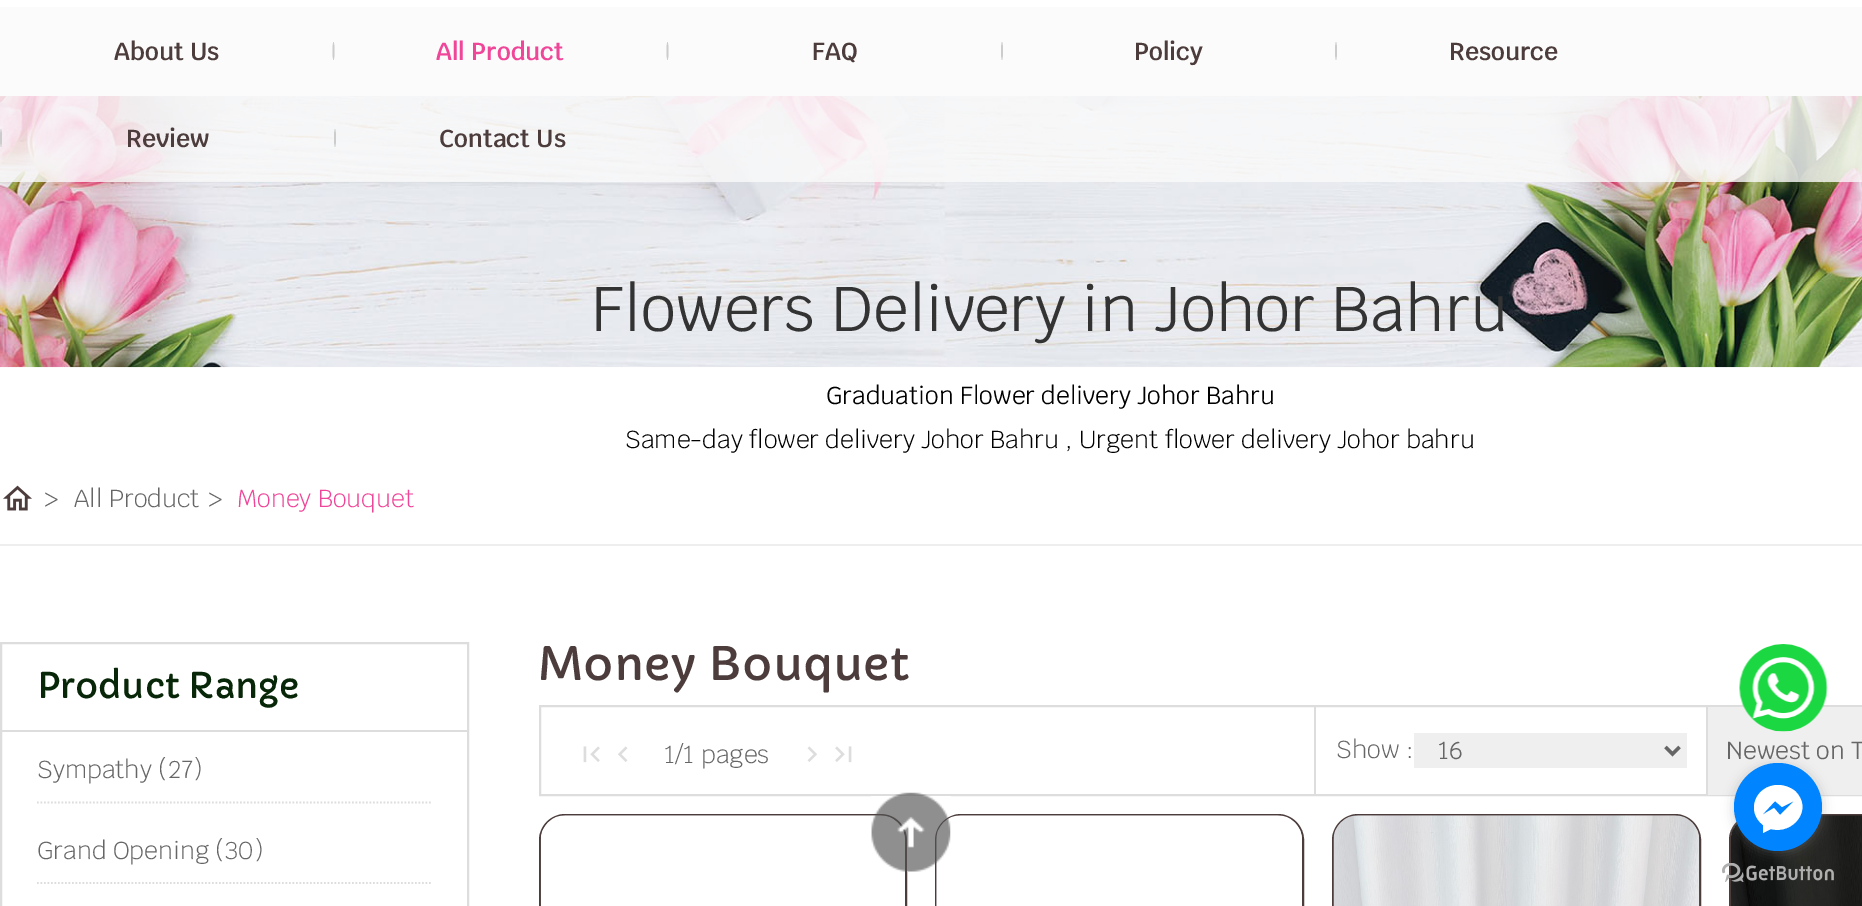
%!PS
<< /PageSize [1862 906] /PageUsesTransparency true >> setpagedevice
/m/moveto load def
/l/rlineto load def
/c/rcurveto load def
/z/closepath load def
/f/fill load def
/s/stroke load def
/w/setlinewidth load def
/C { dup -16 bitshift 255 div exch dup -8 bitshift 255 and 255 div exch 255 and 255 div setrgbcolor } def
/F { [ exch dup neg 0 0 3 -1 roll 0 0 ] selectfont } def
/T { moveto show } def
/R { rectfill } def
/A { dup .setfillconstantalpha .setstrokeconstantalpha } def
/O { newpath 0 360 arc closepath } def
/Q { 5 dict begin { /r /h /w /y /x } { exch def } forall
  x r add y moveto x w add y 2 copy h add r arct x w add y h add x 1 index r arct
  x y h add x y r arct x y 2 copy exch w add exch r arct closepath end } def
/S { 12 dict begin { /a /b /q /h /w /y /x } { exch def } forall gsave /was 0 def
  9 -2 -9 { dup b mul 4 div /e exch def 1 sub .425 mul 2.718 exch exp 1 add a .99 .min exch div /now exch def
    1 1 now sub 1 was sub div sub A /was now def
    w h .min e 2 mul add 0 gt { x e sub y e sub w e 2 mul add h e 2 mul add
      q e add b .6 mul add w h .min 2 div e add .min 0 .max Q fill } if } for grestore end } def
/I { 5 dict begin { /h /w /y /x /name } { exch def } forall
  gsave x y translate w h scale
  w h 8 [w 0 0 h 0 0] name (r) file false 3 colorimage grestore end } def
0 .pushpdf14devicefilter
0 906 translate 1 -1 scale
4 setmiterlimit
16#FFFFFF C
0 0 1862 906 R
(12.rgb) 0 96 1862 272 I
0.8 A
16#FAFAFA C
0 7 1862 175 R
/Krub-SemiBold 24.5 F
1 A
16#4C3C3C C
(About Us) 114 60 T
16#CCCCCC C
333.5 42 m .5 0 1 4 1 9 c 0 5 -.5 9 -1 9 c -.5 0 -1 -4 -1 -9 c 0 -5 .5 -9 1 -9 c z f
16#EF4699 C
(All Product) 436 60 T
16#CCCCCC C
667.5 42 m .5 0 1 4 1 9 c 0 5 -.5 9 -1 9 c -.5 0 -1 -4 -1 -9 c 0 -5 .5 -9 1 -9 c z f
16#4C3C3C C
(FAQ) 812 60 T
16#CCCCCC C
1002 42 m .5 0 1 4 1 9 c 0 5 -.5 9 -1 9 c -.5 0 -1 -4 -1 -9 c 0 -5 .5 -9 1 -9 c z f
16#4C3C3C C
(Policy) 1134 60 T
16#CCCCCC C
1336 42 m .5 0 1 4 1 9 c 0 5 -.5 9 -1 9 c -.5 0 -1 -4 -1 -9 c 0 -5 .5 -9 1 -9 c z f
16#4C3C3C C
(Resource) 1449 60 T
16#CCCCCC C
1 129 m .5 0 1 4 1 9 c 0 5 -.5 9 -1 9 c -.5 0 -1 -4 -1 -9 c 0 -5 .5 -9 1 -9 c z f
16#4C3C3C C
(Review) 126 147 T
16#CCCCCC C
335 129 m .5 0 1 4 1 9 c 0 5 -.5 9 -1 9 c -.5 0 -1 -4 -1 -9 c 0 -5 .5 -9 1 -9 c z f
16#4C3C3C C
(Contact Us) 439 147 T
/Krub-Regular 63 F
16#333333 C
(Flowers Delivery in Johor Bahru) 591 331 T
/Krub-Regular 24.5 F
16#000000 C
(Graduation Flower delivery Johor Bahru) 826 404 T
/Krub-Light 24.5 F
(Same-day flower delivery Johor Bahru , Urgent flower delivery Johor bahru) 625 448 T
16#EEEEEE C
0 544 1862 2 R
(1.rgb) 3 485 29 26 I
16#666666 C
(>) 44 507 T
(All Product) 74 507 T
(>) 208 507 T
16#EF4699 C
(Money Bouquet) 237 507 T
16#DDDDDD C
2 w
540 706 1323 89 rectstroke
16#EFEFEF C
1708 707 154 88 R
(2.rgb) 1739 644 89 88 I
16#DDDDDD C
1 643 467 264 rectstroke
2 730 465 2 R
/Capriola-Regular 35 F
16#082608 C
(Product Range) 37 698 T
16#DDDDDD C
1.8 w
[1.75 1.75] 0 setdash
37 802.5 m 395 0 l s
/Krub-Light 24.5 F
16#666666 C
(Sympathy \(27\)) 37 778 T
16#DDDDDD C
37 883 m 395 0 l s
16#666666 C
(Grand Opening \(30\)) 37 859 T
/Capriola-Regular 45.5 F
16#4C3C3C C
(Money Bouquet) 538 680 T
(3.rgb) 583 746 17 17 I
(4.rgb) 618 746 10 16 I
/Krub-Light 24.5 F
16#666666 C
(1/1 pages) 664 763 T
(5.rgb) 807 746 10 16 I
(6.rgb) 835 746 17 17 I
16#DDDDDD C
1314 707 2 88 R
16#666666 C
(Show :) 1336 758 T
16#EFEFEF C
1414 733 273 35 R
16#656565 C
3.5 w
[] 0 setdash
1665.5 747 m 7 7 l 7 -7 l s
/Krub-Regular 24.5 F
16#666666 C
(16) 1438 759 T
16#DDDDDD C
1706 707 2 88 R
16#666666 C
(Newest on T) 1726 759 T
16#4C3C3C C
2 w
540 815 366 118 25 Q s
(7.rgb) 540 815 365 91 I
936 815 367 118 25 Q s
(8.rgb) 936 815 366 91 I
1333 815 367 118 25 Q s
(9.rgb) 1333 815 367 91 I
1730 815 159 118 25 Q s
(10.rgb) 1731 815 131 91 I
(11.rgb) 871 792 80 80 I
(13.rgb) 1722 863 112 19 I
16#888888 C
1734 765 88 87 43.5 6 .4 S
16#0084FF C
1778 807 44 O f
16#FFFFFF C
1778 785 m -22 0 -33 26 -15 40 c 0 8 l 8 -4 l 22 6 43 -20 24 -38 c -5 -4 -11 -6 -17 -6 c z 1780 815 m -6 -7 l -12 7 l 13 -14 l 7 6 l 12 -6 l z f
.poppdf14devicefilter showpage
